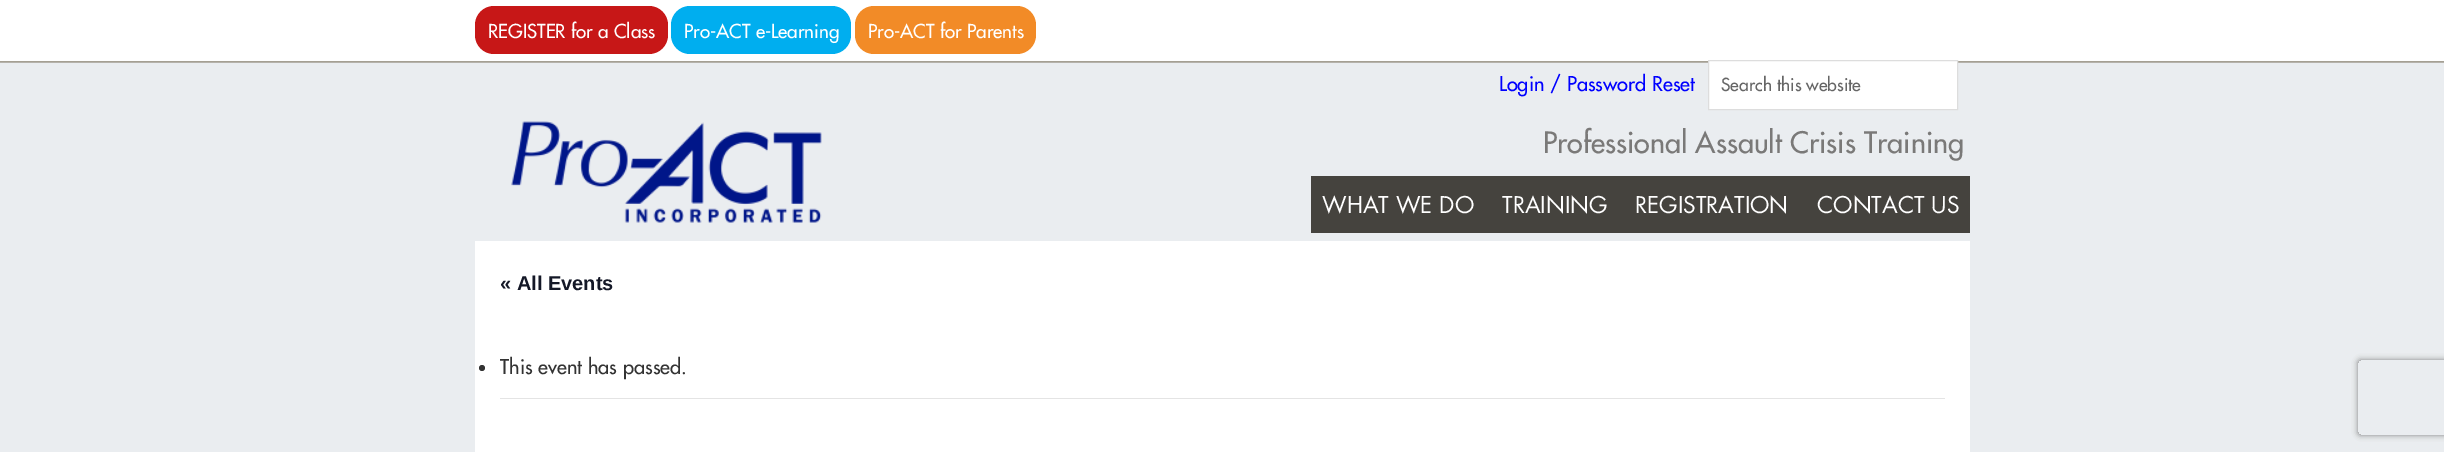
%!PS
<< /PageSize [2444 452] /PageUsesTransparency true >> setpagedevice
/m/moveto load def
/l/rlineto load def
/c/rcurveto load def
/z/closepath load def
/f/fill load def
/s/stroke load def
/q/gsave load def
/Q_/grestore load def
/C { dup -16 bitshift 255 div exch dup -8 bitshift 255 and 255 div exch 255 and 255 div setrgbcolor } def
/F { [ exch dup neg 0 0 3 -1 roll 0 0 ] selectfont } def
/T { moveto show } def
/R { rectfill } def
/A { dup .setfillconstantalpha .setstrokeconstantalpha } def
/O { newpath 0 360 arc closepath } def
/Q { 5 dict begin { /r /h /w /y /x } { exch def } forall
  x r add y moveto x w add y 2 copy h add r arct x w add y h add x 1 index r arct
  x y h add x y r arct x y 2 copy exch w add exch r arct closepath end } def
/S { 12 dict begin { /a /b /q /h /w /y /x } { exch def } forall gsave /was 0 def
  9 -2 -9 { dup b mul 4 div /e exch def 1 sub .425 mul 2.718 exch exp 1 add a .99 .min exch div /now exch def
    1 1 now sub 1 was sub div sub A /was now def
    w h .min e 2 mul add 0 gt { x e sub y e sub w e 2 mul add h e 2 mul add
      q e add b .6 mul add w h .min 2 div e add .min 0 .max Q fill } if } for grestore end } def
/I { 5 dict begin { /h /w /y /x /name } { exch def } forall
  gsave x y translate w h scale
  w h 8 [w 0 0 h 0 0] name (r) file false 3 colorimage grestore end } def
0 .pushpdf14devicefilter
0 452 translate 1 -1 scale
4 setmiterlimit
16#EAEDF0 C
0 0 2444 452 R
(1.rgb) 0 0 2444 63 I
16#C71717 C
475 6 193 48 19 Q f
/Futura-Medium 18.75 F
16#FFFFFF C
(REGISTER for a Class) 488 38 T
16#00AEEF C
671 6 180 48 19 Q f
16#FFFFFF C
(Pro-ACT e-Learning) 684 38 T
16#F28B27 C
855 6 181 48 19 Q f
16#FFFFFF C
(Pro-ACT for Parents) 868 38 T
/Futura-Medium 20 F
16#0000FF C
(Login / Password Reset) 1499 91 T
16#FFFFFF C
1708.5 60.5 m 249 0 l 0 49 l -249 0 l z q f Q_
16#DDDDDD C
s
/Futura-Medium 17.5 F
16#666666 C
(Search this website) 1721 91 T
(2.rgb) 511 121 311 102 I
/Futura-Medium 28.75 F
16#7A7978 C
(Professional Assault Crisis Training) 1543 153 T
16#45433E C
1311 176 659 57 R
/Futura-Regular 22.5 F
16#FFFFFF C
(WHAT WE DO) 1322 213 T
(TRAINING) 1502 213 T
(REGISTRATION) 1635 213 T
(CONTACT US) 1817 213 T
475 241 1495 211 R
/LiberationSans-Bold 20 F
16#141827 C
(« All Events) 500 290 T
16#E4E4E4 C
500 398 1445 1 R
16#333333 C
482 368 3 O f
/Futura-Medium 20 F
(This event has passed.) 500 374 T
q
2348 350 m 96 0 l 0 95 l -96 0 l z 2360.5 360 m 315 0 l 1.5 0 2.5 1 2.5 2.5 c 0 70 l 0 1.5 -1 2.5 -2.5 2.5 c -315 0 l -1.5 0 -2.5 -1 -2.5 -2.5 c 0 -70 l 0 -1.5 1 -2.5 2.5 -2.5 c z eoclip newpath
16#808080 C
2358 360 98 75 2.5 3 1 S
Q_
.poppdf14devicefilter showpage
